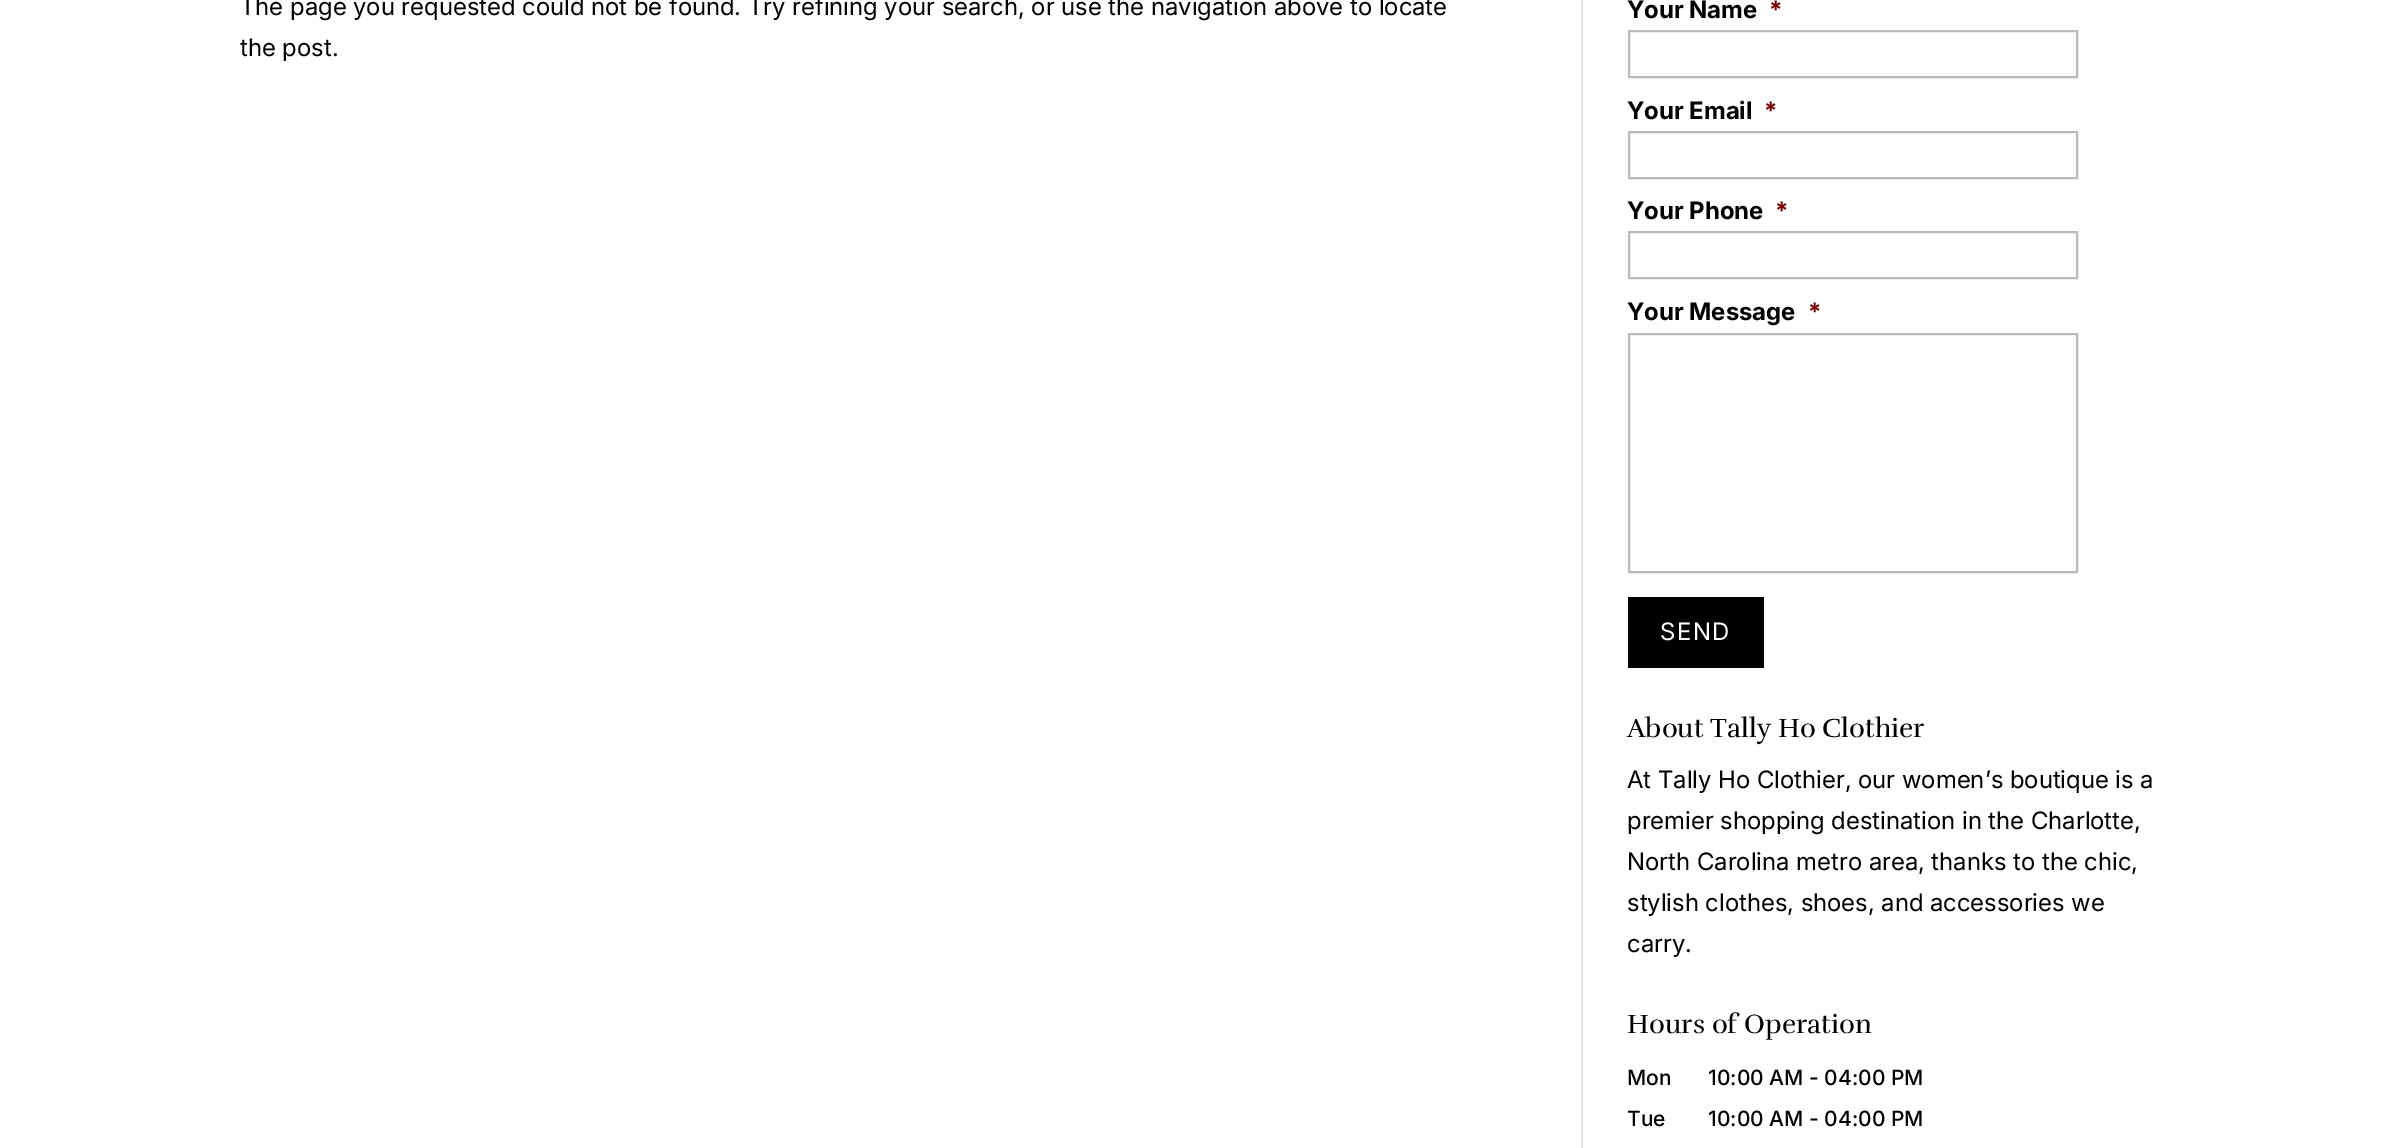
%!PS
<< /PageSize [2397 1148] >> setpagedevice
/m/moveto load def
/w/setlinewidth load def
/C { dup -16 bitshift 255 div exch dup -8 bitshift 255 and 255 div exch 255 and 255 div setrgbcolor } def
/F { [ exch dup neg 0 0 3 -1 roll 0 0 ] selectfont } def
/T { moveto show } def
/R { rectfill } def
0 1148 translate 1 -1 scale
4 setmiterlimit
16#FFFFFF C
0 0 2397 1148 R
/Inter-Regular 24 F
16#000000 C
(The page you requested could not be found. Try refining your search, or use the navigation above to locate) 240 15 T
(the post.) 240 56 T
/Inter-Bold 24 F
(Your Name) 1627 18 T
16#790000 C
(*) 1769 18 T
16#BBBBBB C
2 w
1629 31 448 46 rectstroke
16#000000 C
(Your Email) 1627 119 T
16#790000 C
(*) 1764 119 T
16#BBBBBB C
1629 132 448 46 rectstroke
16#000000 C
(Your Phone) 1627 219 T
16#790000 C
(*) 1775 219 T
16#BBBBBB C
1629 232 448 46 rectstroke
16#000000 C
(Your Message) 1627 320 T
16#790000 C
(*) 1808 320 T
16#BBBBBB C
1629 334 448 238 rectstroke
16#000000 C
1628 597 136 71 R
/Inter-Regular 24 F
16#FFFFFF C
1660 640 m 1.5 0 (SEND) ashow
/Rufina-Regular 27 F
16#000000 C
(About Tally Ho Clothier) 1627 737 T
/Inter-Regular 24 F
(At Tally Ho Clothier, our women’s boutique is a) 1627 788 T
(premier shopping destination in the Charlotte,) 1627 829 T
(North Carolina metro area, thanks to the chic,) 1627 870 T
(stylish clothes, shoes, and accessories we) 1627 911 T
(carry.) 1627 952 T
/Rufina-Regular 27 F
(Hours of Operation) 1627 1033 T
/Inter-Medium 21 F
(Mon) 1627 1085 T
(10:00 AM - 04:00 PM) 1708 1085 T
(Tue) 1627 1126 T
(10:00 AM - 04:00 PM) 1708 1126 T
16#E2E2E2 C
1581 0 2 1148 R
showpage
